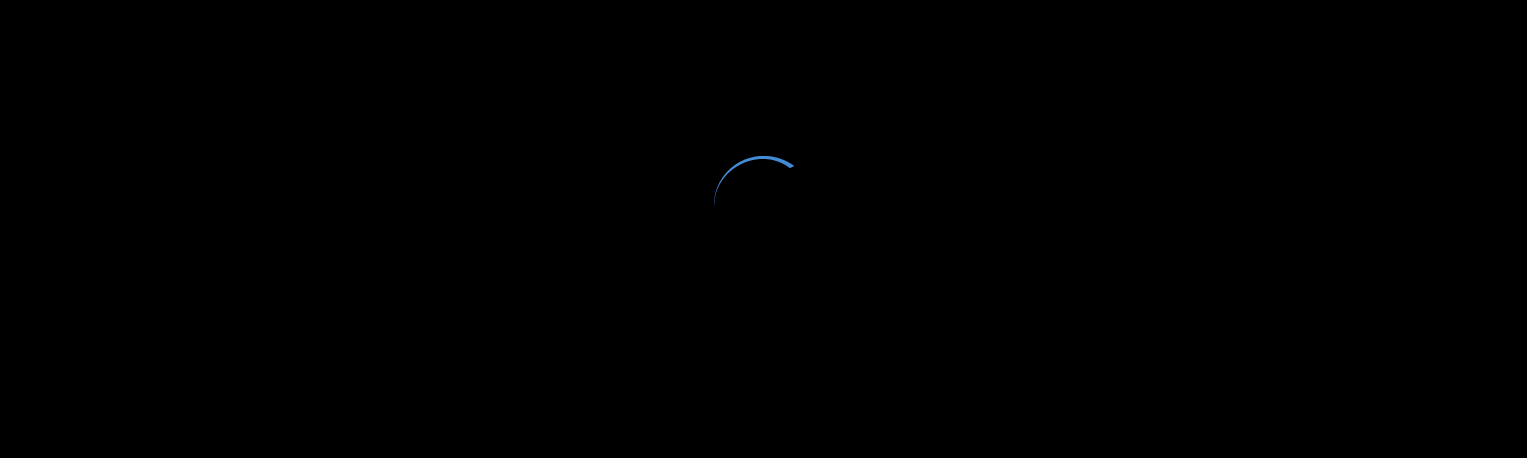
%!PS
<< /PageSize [1527 458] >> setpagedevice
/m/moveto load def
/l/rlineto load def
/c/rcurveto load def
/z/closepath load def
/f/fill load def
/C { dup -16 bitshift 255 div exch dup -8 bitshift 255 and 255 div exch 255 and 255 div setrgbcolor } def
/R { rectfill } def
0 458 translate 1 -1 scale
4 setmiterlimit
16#000000 C
0 0 1527 458 R
16#448BD6 C
764 156 m -28 0 -50 22 -50 50 c 0 -38 46 -61 76 -38 c 4 -2 l -8 -6 -19 -10 -30 -10 c z f
showpage
